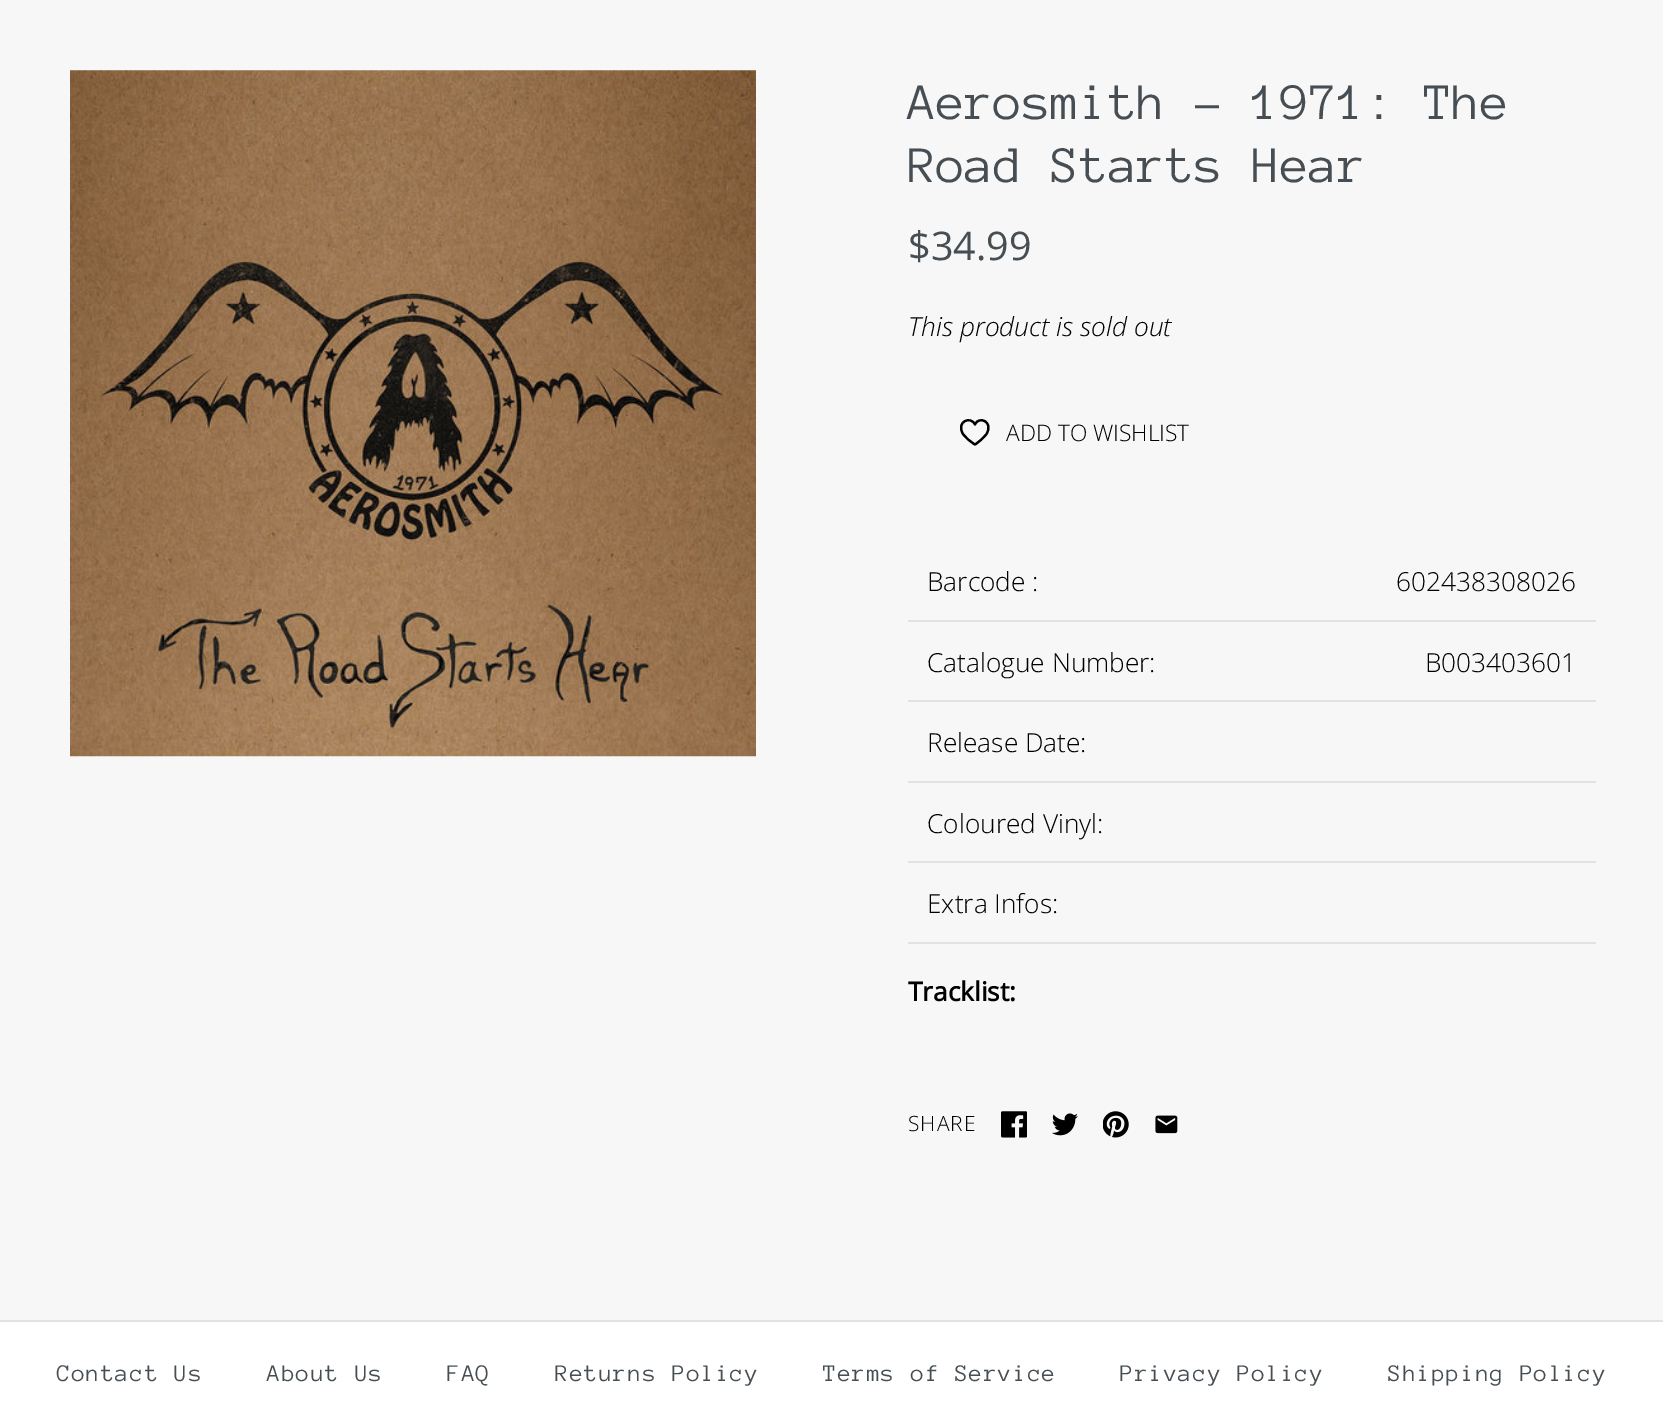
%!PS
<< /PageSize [1663 1403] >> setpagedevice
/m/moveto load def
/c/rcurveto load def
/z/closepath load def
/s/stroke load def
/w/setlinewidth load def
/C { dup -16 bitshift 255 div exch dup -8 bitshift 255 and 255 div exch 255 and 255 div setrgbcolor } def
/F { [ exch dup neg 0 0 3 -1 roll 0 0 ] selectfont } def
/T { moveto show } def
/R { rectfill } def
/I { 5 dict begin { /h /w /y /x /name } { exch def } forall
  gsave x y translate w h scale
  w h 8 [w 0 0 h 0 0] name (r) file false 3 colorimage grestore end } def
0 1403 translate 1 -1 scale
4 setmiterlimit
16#F7F7F7 C
0 0 1663 1403 R
(1.rgb) 70 70 686 687 I
/AnonymousPro-Regular 52.5 F
16#464E54 C
(Aerosmith - 1971: The) 908 119 T
(Road Starts Hear) 908 182 T
/OpenSans-Regular 39.5 F
($34.99) 908 260 T
/OpenSans-LightItalic 26.25 F
16#000000 C
(This product is sold out) 908 336 T
2.2 w
1 setlinecap
1 setlinejoin
975 444.5 m -4.5 -2.5 -9 -6.5 -12 -10.5 c -7.5 -12.5 8 -18.5 12 -9.5 c 3.5 -9 19 -3 11.5 9.5 c -3 4 -7.5 8 -11.5 10.5 c z s
/OpenSans-Light 22.75 F
(ADD TO WISHLIST) 1006 441 T
/OpenSans-Light 26.25 F
(Barcode :) 927 591 T
(602438308026) 1396 591 T
(Catalogue Number:) 927 672 T
16#E2E2E2 C
908 620 688 2 R
16#000000 C
(B003403601) 1425 672 T
16#E2E2E2 C
908 700 688 2 R
16#000000 C
(Release Date:) 927 752 T
16#E2E2E2 C
908 781 688 2 R
16#000000 C
(Coloured Vinyl:) 927 833 T
16#E2E2E2 C
908 861 688 2 R
908 942 688 2 R
16#000000 C
(Extra Infos:) 927 913 T
/OpenSans-Bold 26.25 F
(Tracklist:) 908 1001 T
/OpenSans-Light 21 F
908 1131 m 1 0 (SHARE) ashow
(2.rgb) 1001 1111 26 27 I
(3.rgb) 1052 1113 26 23 I
(4.rgb) 1103 1111 26 27 I
(5.rgb) 1155 1115 23 19 I
16#FFFFFF C
0 1322 1663 81 R
16#E2E2E2 C
0 1320 1663 2 R
/AnonymousPro-Regular 24.5 F
16#464E54 C
57 1381 m 1.25 0 (Contact Us) ashow
267 1381 m 1.25 0 (About Us) ashow
447 1381 m 1.25 0 (FAQ) ashow
555 1381 m 1.25 0 (Returns Policy) ashow
823 1381 m 1.25 0 (Terms of Service) ashow
1120 1381 m 1.25 0 (Privacy Policy) ashow
1388 1381 m 1.25 0 (Shipping Policy) ashow
showpage
